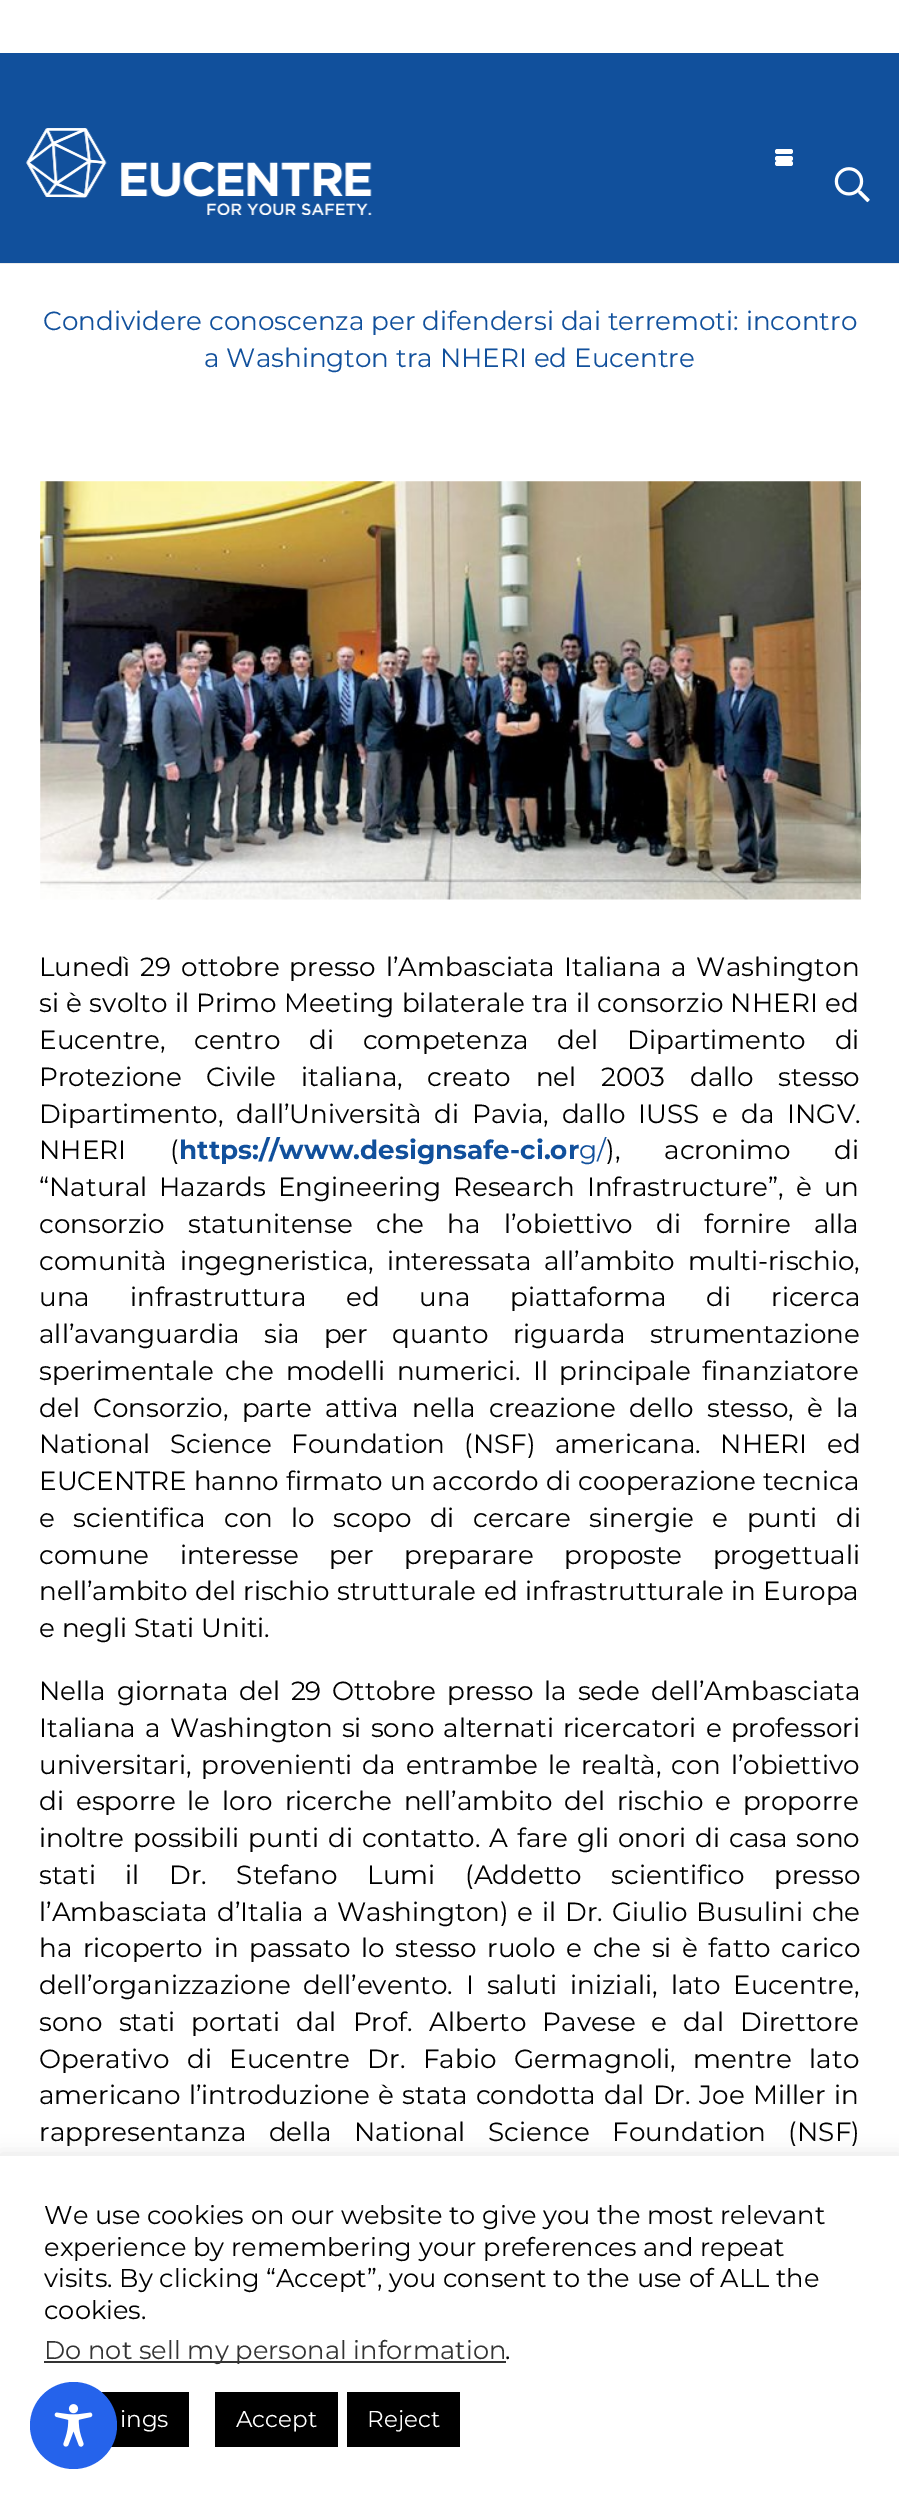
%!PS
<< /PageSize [899 2498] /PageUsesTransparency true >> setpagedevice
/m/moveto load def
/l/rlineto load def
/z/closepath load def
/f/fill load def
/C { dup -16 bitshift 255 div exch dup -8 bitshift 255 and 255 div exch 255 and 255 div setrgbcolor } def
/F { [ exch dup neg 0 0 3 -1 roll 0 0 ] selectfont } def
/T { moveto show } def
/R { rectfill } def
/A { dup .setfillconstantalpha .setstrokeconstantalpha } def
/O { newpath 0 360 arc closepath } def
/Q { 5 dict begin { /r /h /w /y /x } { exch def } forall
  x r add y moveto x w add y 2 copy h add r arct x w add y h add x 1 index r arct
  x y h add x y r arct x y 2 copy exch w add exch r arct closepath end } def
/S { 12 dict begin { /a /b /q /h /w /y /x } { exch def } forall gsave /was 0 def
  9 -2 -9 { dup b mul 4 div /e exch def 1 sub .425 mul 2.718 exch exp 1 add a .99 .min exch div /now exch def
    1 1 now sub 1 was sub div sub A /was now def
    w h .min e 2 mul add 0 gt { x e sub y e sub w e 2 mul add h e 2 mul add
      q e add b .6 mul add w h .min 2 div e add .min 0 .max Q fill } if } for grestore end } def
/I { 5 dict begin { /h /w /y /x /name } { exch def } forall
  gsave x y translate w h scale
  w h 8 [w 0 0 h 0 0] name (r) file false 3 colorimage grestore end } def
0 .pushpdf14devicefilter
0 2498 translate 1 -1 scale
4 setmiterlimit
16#FFFFFF C
0 0 899 2498 R
16#EBEBEB C
0 262 m 0 2 l 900 0 l 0 -210 l 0 208 l z f
16#11509C C
0 53 899 210 R
(1.rgb) 26 128 346 87 I
16#FFFFFF C
775 156 18 5 2.5 Q f
775 149 18 5 2.5 Q f
775 161 18 5 2.5 Q f
(2.rgb) 834 167 36 36 I
/Montserrat-Regular 26.25 F
16#11509C C
(Condividere conoscenza per difendersi dai terremoti: incontro) 43 330 T
(a Washington tra NHERI ed Eucentre) 204 367 T
(3.rgb) 40 481 821 419 I
16#000000 C
39 976 m 3 0 32 (Lunedì 29 ottobre presso l’Ambasciata Italiana a Washington) widthshow
39 1012 m .5 0 32 (si è svolto il Primo Meeting bilaterale tra il consorzio NHERI ed) widthshow
39 1049 m 22 0 32 (Eucentre, centro di competenza del Dipartimento di) widthshow
39 1086 m 17.75 0 32 (Protezione Civile italiana, creato nel 2003 dallo stesso) widthshow
39 1123 m 6 0 32 (Dipartimento, dall’Università di Pavia, dallo IUSS e da INGV.) widthshow
39 1159 m 37 0 32 (NHERI \() widthshow
/Montserrat-Bold 26.25 F
16#11509C C
(https://www.designsafe-ci.or) 179 1159 T
/Montserrat-Regular 26.25 F
(g/) 579 1159 T
16#000000 C
606 1159 m 37 0 32 (\), acronimo di) widthshow
39 1196 m 5 0 32 (“Natural Hazards Engineering Research Infrastructure”, è un) widthshow
39 1233 m 16.25 0 32 (consorzio statunitense che ha l’obiettivo di fornire alla) widthshow
39 1270 m 6 0 32 (comunità ingegneristica, interessata all’ambito multi-rischio,) widthshow
39 1306 m 33 0 32 (una infrastruttura ed una piattaforma di ricerca) widthshow
39 1343 m 17.75 0 32 (all’avanguardia sia per quanto riguarda strumentazione) widthshow
39 1380 m 5 0 32 (sperimentale che modelli numerici. Il principale finanziatore) widthshow
39 1417 m 6.5 0 32 (del Consorzio, parte attiva nella creazione dello stesso, è la) widthshow
39 1453 m 12.5 0 32 (National Science Foundation \(NSF\) americana. NHERI ed) widthshow
39 1490 m .25 0 32 (EUCENTRE hanno firmato un accordo di cooperazione tecnica) widthshow
39 1527 m 11.5 0 32 (e scientifica con lo scopo di cercare sinergie e punti di) widthshow
39 1564 m 23.5 0 32 (comune interesse per preparare proposte progettuali) widthshow
39 1600 m .5 0 32 (nell’ambito del rischio strutturale ed infrastrutturale in Europa) widthshow
(e negli Stati Uniti.) 39 1637 T
39 1700 m 4 0 32 (Nella giornata del 29 Ottobre presso la sede dell’Ambasciata) widthshow
39 1737 m 2.25 0 32 (Italiana a Washington si sono alternati ricercatori e professori) widthshow
39 1774 m 3.25 0 32 (universitari, provenienti da entrambe le realtà, con l’obiettivo) widthshow
39 1810 m 5 0 32 (di esporre le loro ricerche nell’ambito del rischio e proporre) widthshow
39 1847 m 2.1 0 32 (inoltre possibili punti di contatto. A fare gli onori di casa sono) widthshow
39 1884 m 22.75 0 32 (stati il Dr. Stefano Lumi \(Addetto scientifico presso) widthshow
39 1921 m 2 0 32 (l’Ambasciata d’Italia a Washington\) e il Dr. Giulio Busulini che) widthshow
39 1957 m 3.75 0 32 (ha ricoperto in passato lo stesso ruolo e che si è fatto carico) widthshow
39 1994 m 6 0 32 (dell’organizzazione dell’evento. I saluti iniziali, lato Eucentre,) widthshow
39 2031 m 9.25 0 32 (sono stati portati dal Prof. Alberto Pavese e dal Direttore) widthshow
39 2068 m 10.75 0 32 (Operativo di Eucentre Dr. Fabio Germagnoli, mentre lato) widthshow
39 2104 m 1.5 0 32 (americano l’introduzione è stata condotta dal Dr. Joe Miller in) widthshow
39 2141 m 15.5 0 32 (rappresentanza della National Science Foundation \(NSF\)) widthshow
16#ACABAB C
0 2154 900 343 0 9 .3 S
16#FFFFFF C
0 2156 899 342 R
/Montserrat-Regular 25.7 F
16#000000 C
(We use cookies on our website to give you the most relevant) 44 2224 T
(experience by remembering your preferences and repeat) 44 2256 T
(visits. By clicking “Accept”, you consent to the use of ALL the) 44 2287 T
(cookies.) 44 2319 T
16#333333 C
44 2361 462 2 R
(Do not sell my personal information) 44 2359 T
16#000000 C
(.) 505 2359 T
101 2392 88 55 R
/Montserrat-Regular 23 F
16#FFFFFF C
(ings) 120 2427 T
16#000000 C
215 2392 123 55 R
16#FFFFFF C
(Accept) 236 2427 T
16#000000 C
347 2392 113 55 R
16#FFFFFF C
(Reject) 367 2427 T
16#2563EB C
73.5 2425.5 43.5 O f
(4.rgb) 54 2404 39 43 I
.poppdf14devicefilter showpage
